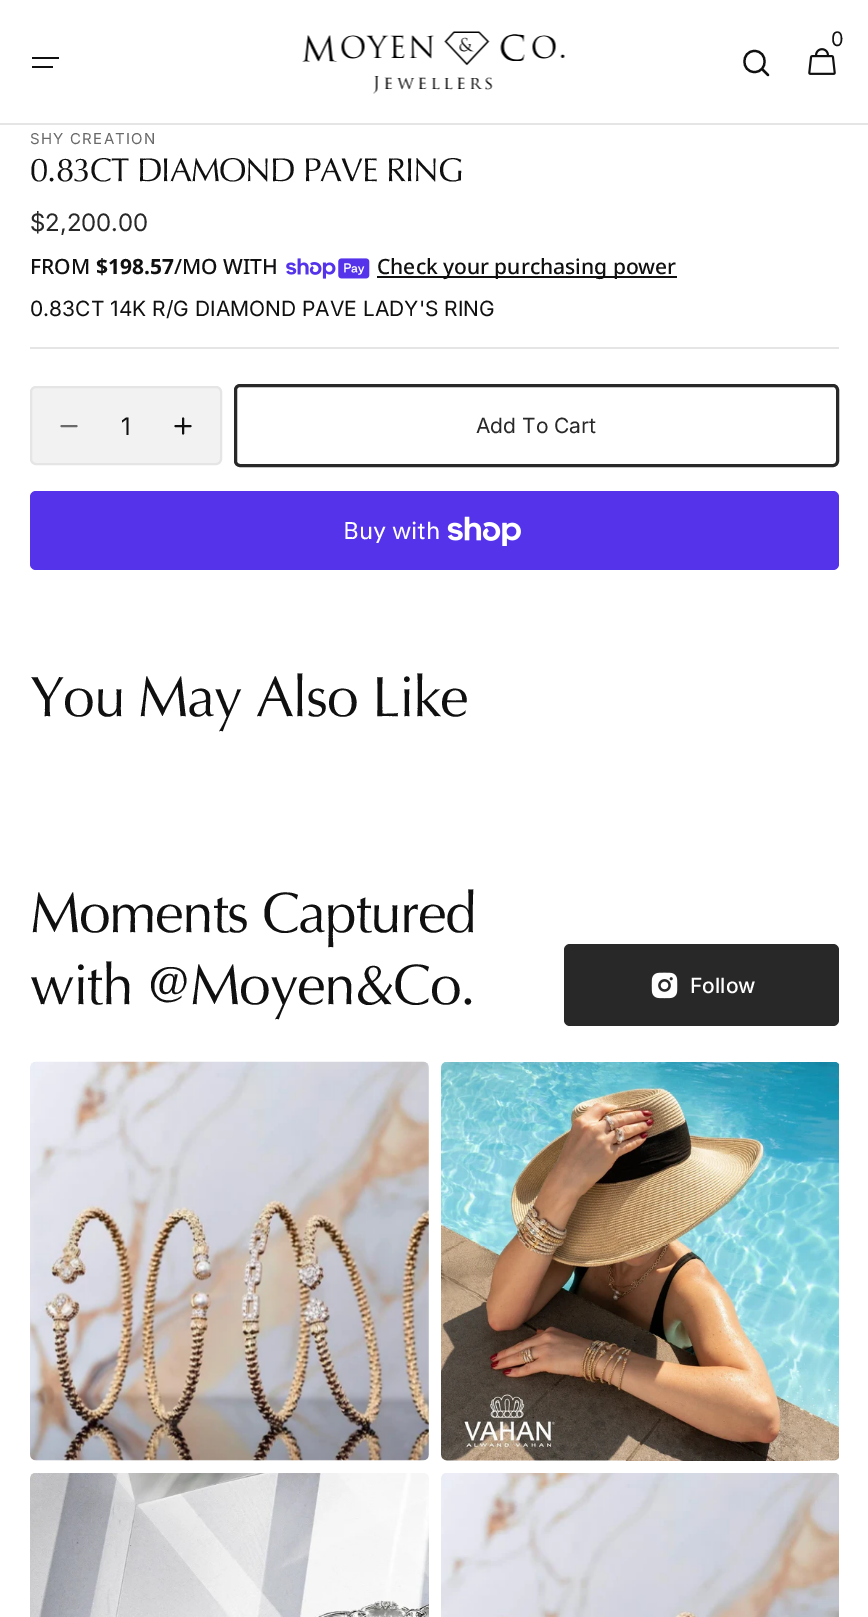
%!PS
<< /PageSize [868 1617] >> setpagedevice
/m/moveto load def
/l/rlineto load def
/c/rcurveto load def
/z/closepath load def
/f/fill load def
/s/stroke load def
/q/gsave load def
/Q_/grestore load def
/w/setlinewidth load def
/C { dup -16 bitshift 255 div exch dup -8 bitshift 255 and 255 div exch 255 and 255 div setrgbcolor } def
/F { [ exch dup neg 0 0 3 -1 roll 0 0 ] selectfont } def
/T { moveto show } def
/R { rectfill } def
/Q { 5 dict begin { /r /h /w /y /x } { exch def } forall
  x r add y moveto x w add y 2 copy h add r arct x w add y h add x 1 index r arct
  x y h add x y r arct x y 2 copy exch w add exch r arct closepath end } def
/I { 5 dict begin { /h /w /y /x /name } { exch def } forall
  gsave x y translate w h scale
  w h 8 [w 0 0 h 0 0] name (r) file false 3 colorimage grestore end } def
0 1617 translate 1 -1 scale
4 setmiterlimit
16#FFFFFF C
0 0 868 1617 R
(1.rgb) 302 31 263 63 I
/Inter-Regular 20 F
16#101010 C
(0) 831 46 T
(2.rgb) 808 48 28 27 I
2.2 w
1 setlinecap
1 setlinejoin
754.5 72 m 13.5 0 13.5 -21 0 -21 c -13.5 0 -13.5 21 0 21 c z 762 69 m 6 6 l s
32 57 27 2 R
32 66 21 2 R
16#E5E5E5 C
0 123 868 2 R
/Inter-Regular 15 F
16#696969 C
30 144 m 1.25 0 (SHY CREATION) ashow
/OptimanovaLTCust-Regular 33 F
16#101010 C
30 181 m -1 0 (0.83CT DIAMOND PAVE RING) ashow
/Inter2-Regular 24 F
16#282828 C
($2,200.00) 30 231 T
/NotoSans-Medium 21 F
16#101010 C
(FROM) 30 274 T
/NotoSans-Bold 21 F
($198.57) 96 274 T
/NotoSans-Medium 21 F
(/MO WITH) 174 274 T
(3.rgb) 286 258 84 21 I
377 276 300 2 R
(Check your purchasing power) 377 274 T
/Inter-Regular 21 F
(0.83CT 14K R/G DIAMOND PAVE LADY'S RING) 30 316 T
16#E5E5E5 C
30 347 809 2 R
16#F2F2F2 C
31 387 190 77 5 Q q f Q_
16#E5E5E5 C
2 w
0 setlinecap
0 setlinejoin
s
16#6A6A6A C
1 setlinecap
76.5 426 m -15 0 l s
/Inter2-Regular 24 F
16#101010 C
(1) 121 435 T
190.5 426 m -15 0 l 183 433.5 m 0 -15 l s
16#282828 C
3 w
0 setlinecap
235.5 385.5 602 80 4.5 Q s
/Inter-Regular 21 F
(Add To Cart) 476 433 T
16#5433EB C
30 491 809 79 6 Q f
/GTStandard-Regular 24 F
16#FFFFFF C
(Buy with) 343 539 T
(4.rgb) 447 516 74 30 I
/OptimanovaLTCust-Regular 57 F
16#101010 C
30 716 m -1.5 0 (You May Also Like) ashow
30 932 m -1.5 0 (Moments Captured) ashow
30 1004 m -1.5 0 (with @Moyen&Co.) ashow
16#282828 C
564 944 275 82 6 Q f
(5.rgb) 651 972 27 27 I
/Inter-Medium 21 F
16#FFFFFF C
(Follow) 690 993 T
(6.rgb) 30 1061 399 400 I
(7.rgb) 441 1062 398 399 I
(8.rgb) 30 1473 399 144 I
(9.rgb) 441 1473 398 144 I
showpage
